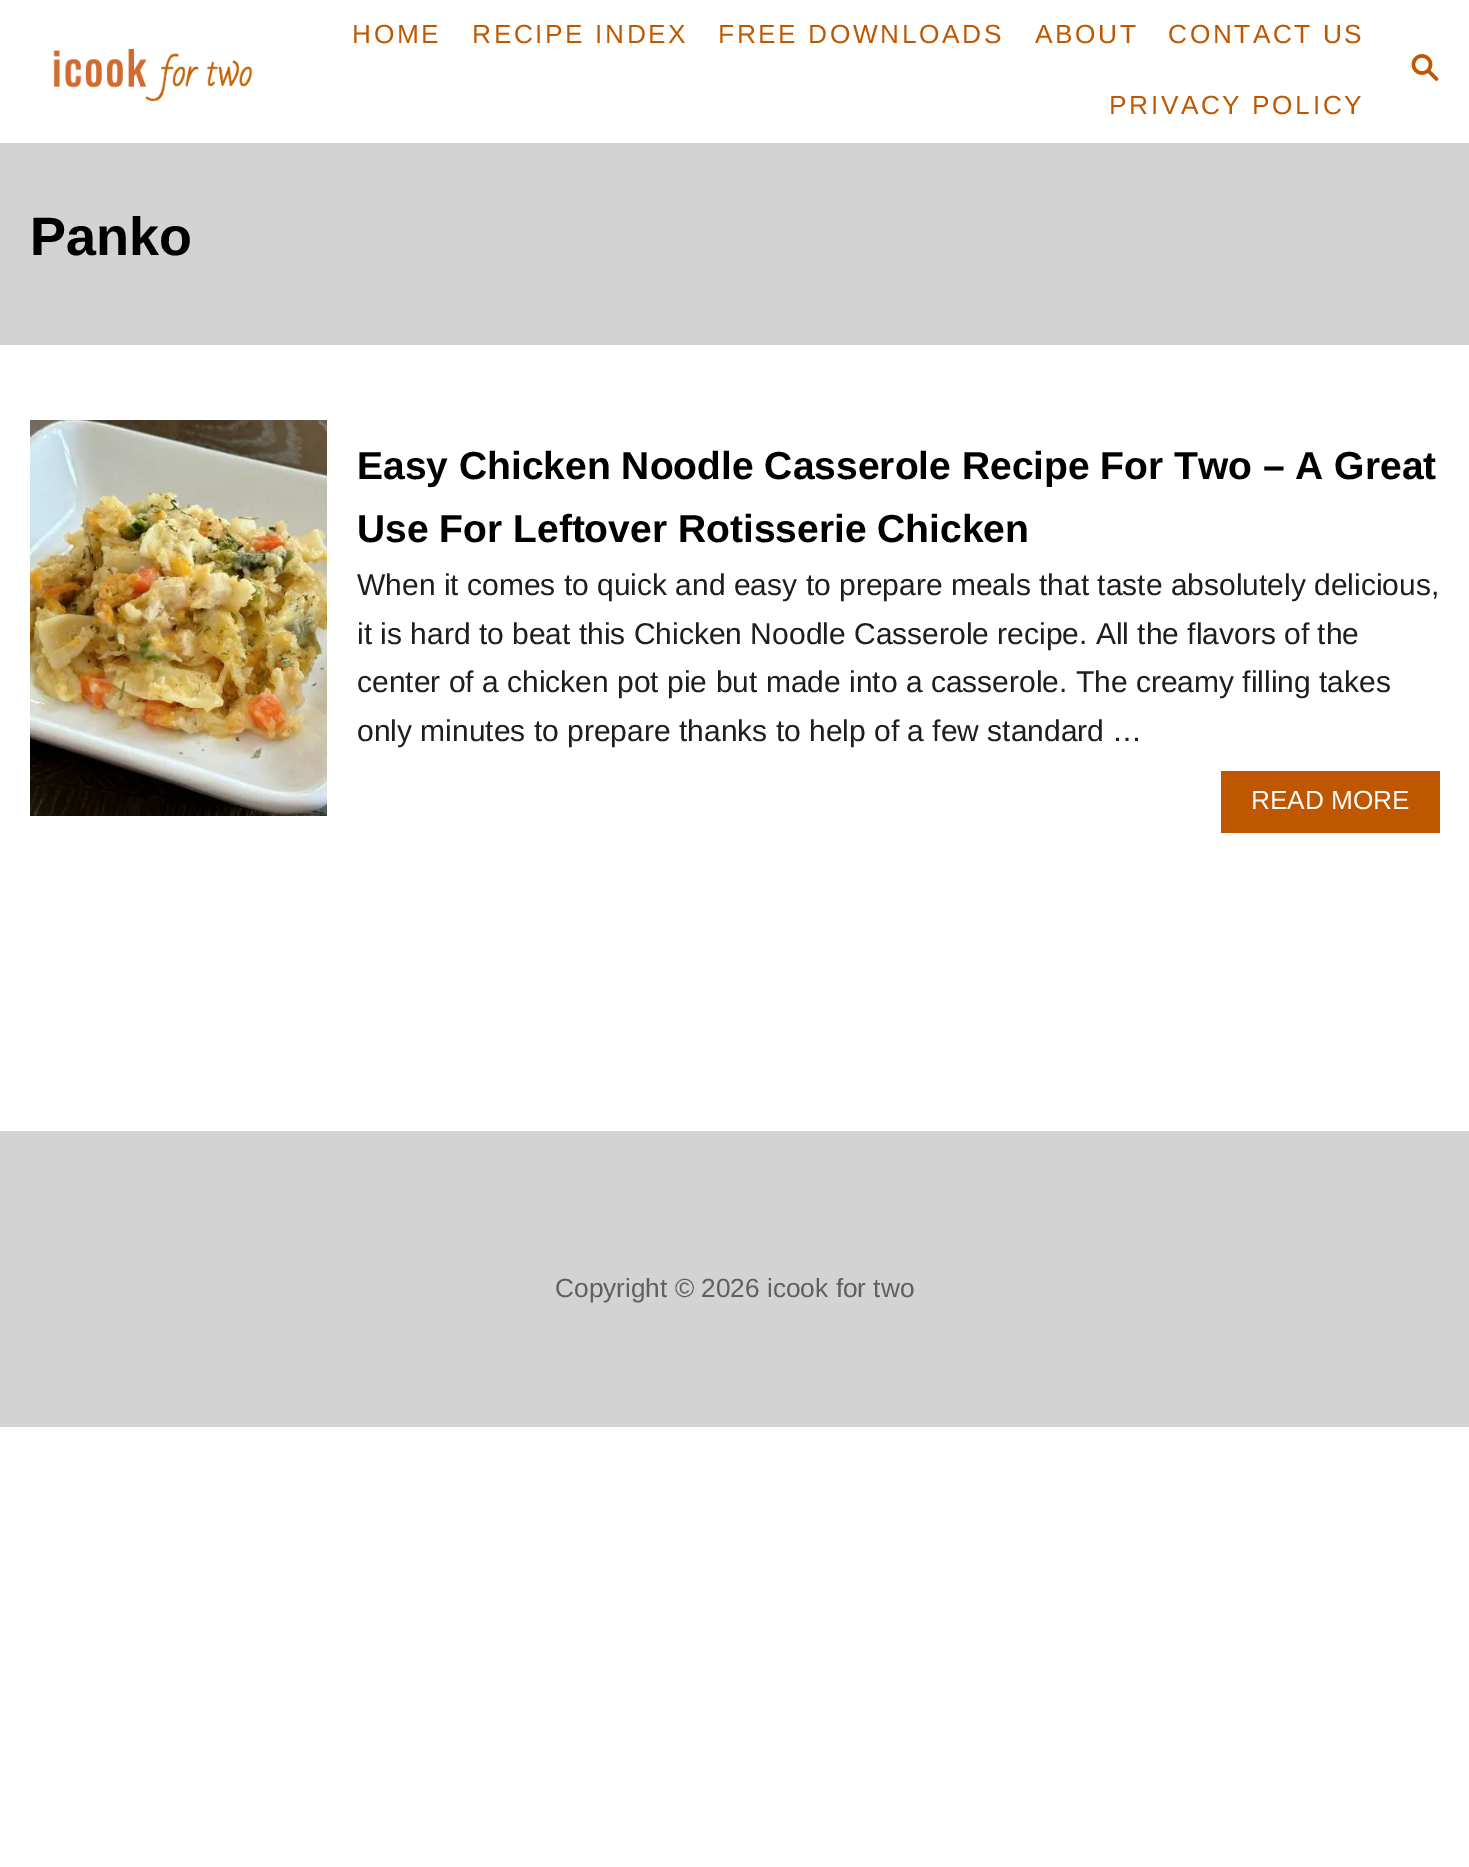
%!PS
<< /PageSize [1469 1867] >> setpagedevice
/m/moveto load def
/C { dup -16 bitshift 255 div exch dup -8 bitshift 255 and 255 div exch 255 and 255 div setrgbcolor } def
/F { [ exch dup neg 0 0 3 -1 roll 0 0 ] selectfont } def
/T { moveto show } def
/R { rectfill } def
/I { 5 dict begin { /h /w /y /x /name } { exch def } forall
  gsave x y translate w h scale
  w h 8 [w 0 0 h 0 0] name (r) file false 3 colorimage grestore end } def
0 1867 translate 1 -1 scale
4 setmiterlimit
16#FFFFFF C
0 0 1469 1867 R
(1.rgb) 53 48 200 54 I
/LiberationSans-Regular 26.25 F
16#BF5700 C
352 43 m 2.6 0 (HOME) ashow
472 43 m 2.6 0 (RECIPE INDEX) ashow
718 43 m 2.6 0 (FREE DOWNLOADS) ashow
1035 43 m 2.6 0 (ABOUT) ashow
1168 43 m 2.6 0 (CONTACT US) ashow
1109 114 m 2.6 0 (PRIVACY POLICY) ashow
(2.rgb) 1411 54 28 27 I
16#D3D3D3 C
1440 143 29 202 R
0 143 1440 202 R
/LiberationSans-Bold 54 F
16#000000 C
(Panko) 30 255 T
(3.rgb) 30 420 297 396 I
/LiberationSans-Bold 39 F
(Easy Chicken Noodle Casserole Recipe For Two – A Great) 357 479 T
(Use For Leftover Rotisserie Chicken) 357 542 T
/LiberationSans-Regular 30 F
16#1E1E1E C
(When it comes to quick and easy to prepare meals that taste absolutely delicious,) 357 595 T
(it is hard to beat this Chicken Noodle Casserole recipe. All the flavors of the) 357 644 T
(center of a chicken pot pie but made into a casserole. The creamy filling takes) 357 692 T
(only minutes to prepare thanks to help of a few standard …) 357 741 T
16#BF5700 C
1221 771 219 62 R
/LiberationSans-Regular 26.25 F
16#FFFFFF C
(READ MORE) 1251 809 T
16#D3D3D3 C
0 1131 1469 296 R
16#606060 C
(Copyright © 2026 icook for two) 555 1297 T
showpage
